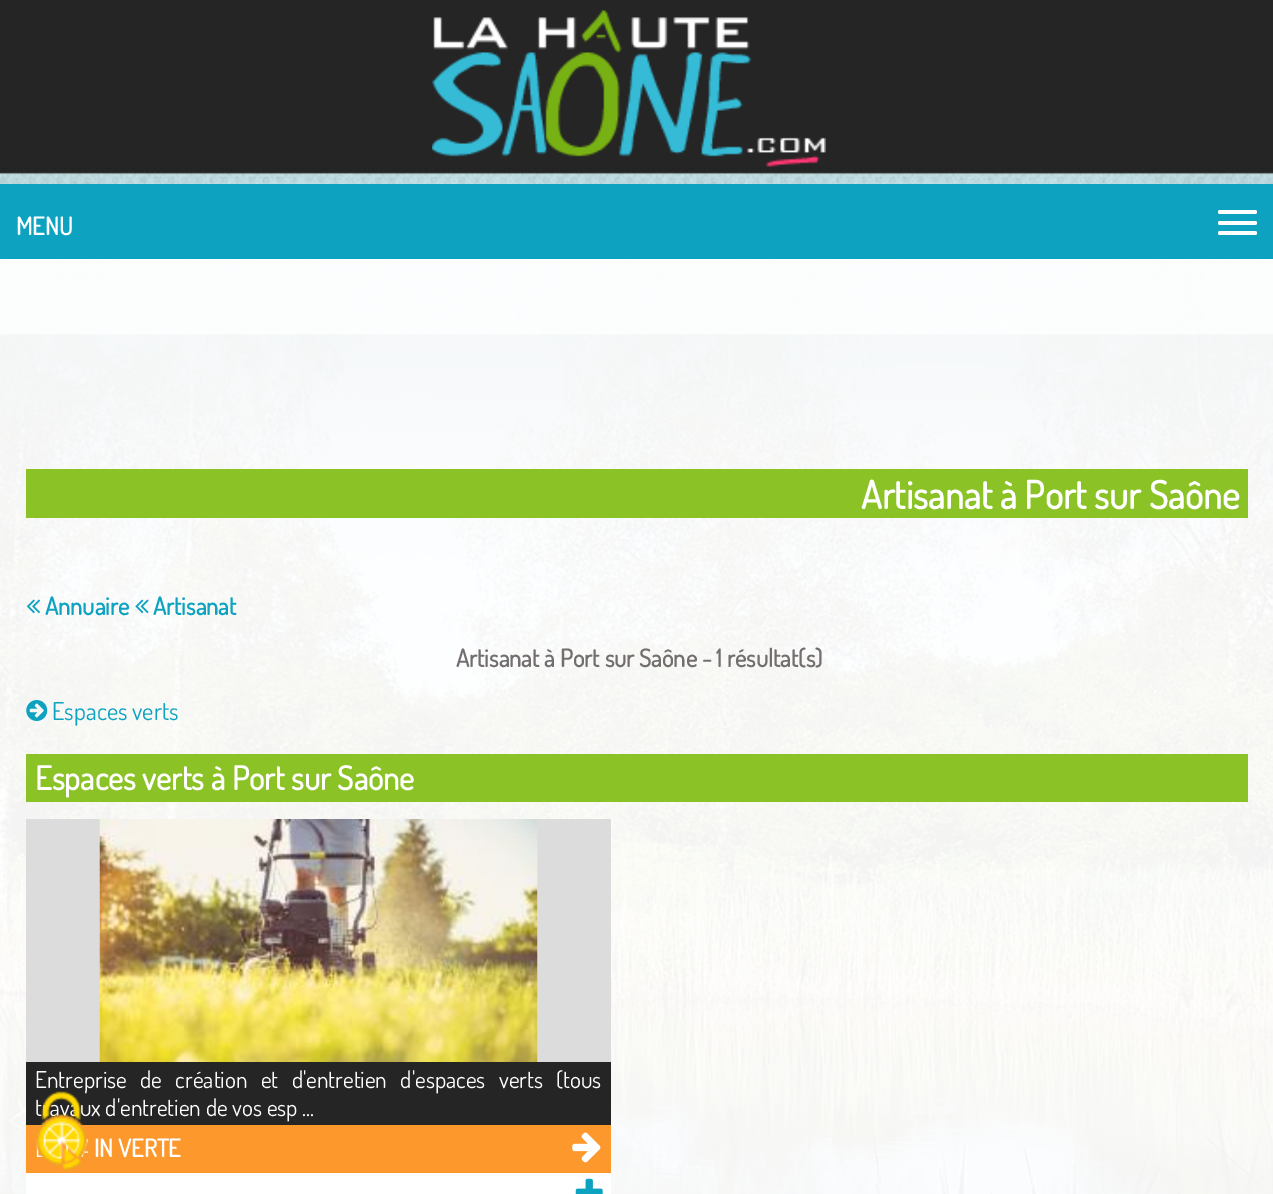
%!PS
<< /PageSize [1273 1194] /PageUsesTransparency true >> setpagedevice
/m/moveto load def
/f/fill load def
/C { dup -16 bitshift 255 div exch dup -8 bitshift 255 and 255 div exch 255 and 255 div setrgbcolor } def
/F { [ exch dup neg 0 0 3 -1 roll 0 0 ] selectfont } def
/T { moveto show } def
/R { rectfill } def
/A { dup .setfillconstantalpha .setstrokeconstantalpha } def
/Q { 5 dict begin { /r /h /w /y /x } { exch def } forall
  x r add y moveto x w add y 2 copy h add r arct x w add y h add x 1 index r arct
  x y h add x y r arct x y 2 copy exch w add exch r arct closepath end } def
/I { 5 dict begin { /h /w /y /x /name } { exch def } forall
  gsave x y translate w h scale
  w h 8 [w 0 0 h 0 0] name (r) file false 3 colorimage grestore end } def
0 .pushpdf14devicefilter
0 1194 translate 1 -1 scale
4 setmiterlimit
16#FFFFFF C
0 0 1273 1194 R
(1.rgb) 0 0 1273 1194 I
(2.rgb) 432 10 394 157 I
16#0EA2C1 C
0 184 1273 75 R
16#FFFFFF C
1218 210 39 4 2 Q f
/Dosis-Bold 24.5 F
(MENU) 16 235 T
1218 221 39 4 2 Q f
1218 231 39 4 2 Q f
0.95 A
0 259 1273 935 R
1 A
16#8BC327 C
26 469 1222 49 R
/Dosis-Bold 38.5 F
16#FFFFFF C
(Artisanat à Port sur Saône) 861 509 T
(3.rgb) 26 599 14 15 I
/Dosis-Bold 24.5 F
16#0EA2C1 C
(Annuaire) 45 615 T
(4.rgb) 135 599 14 15 I
(Artisanat) 153 615 T
16#736F6F C
(Artisanat à Port sur Saône - 1 résultat\(s\)) 456 667 T
(5.rgb) 26 700 22 21 I
/Dosis-Regular 24.5 F
16#0EA2C1 C
(Espaces verts) 52 720 T
16#8BC327 C
26 754 1222 48 R
/Dosis-Bold 32.75 F
16#FFFFFF C
(Espaces verts à Port sur Saône) 35 790 T
16#DCDCDC C
26 819 585 243 R
(6.rgb) 99 819 439 243 I
16#252525 C
26 1062 585 63 R
/Dosis-Regular 23.3 F
16#FFFFFF C
35 1088 m 8.75 0 32 (Entreprise de création et d'entretien d'espaces verts \(tous) widthshow
(travaux d'entretien de vos esp ...) 35 1116 T
16#FD982C C
26 1125 585 48 R
/Dosis-Bold 24.5 F
16#FFFFFF C
(IN VERTE) 94 1157 T
(7.rgb) 572 1132 29 31 I
26 1173 585 21 R
(8.rgb) 575 1178 28 16 I
(9.rgb) 35 1091 53 80 I
.poppdf14devicefilter showpage
